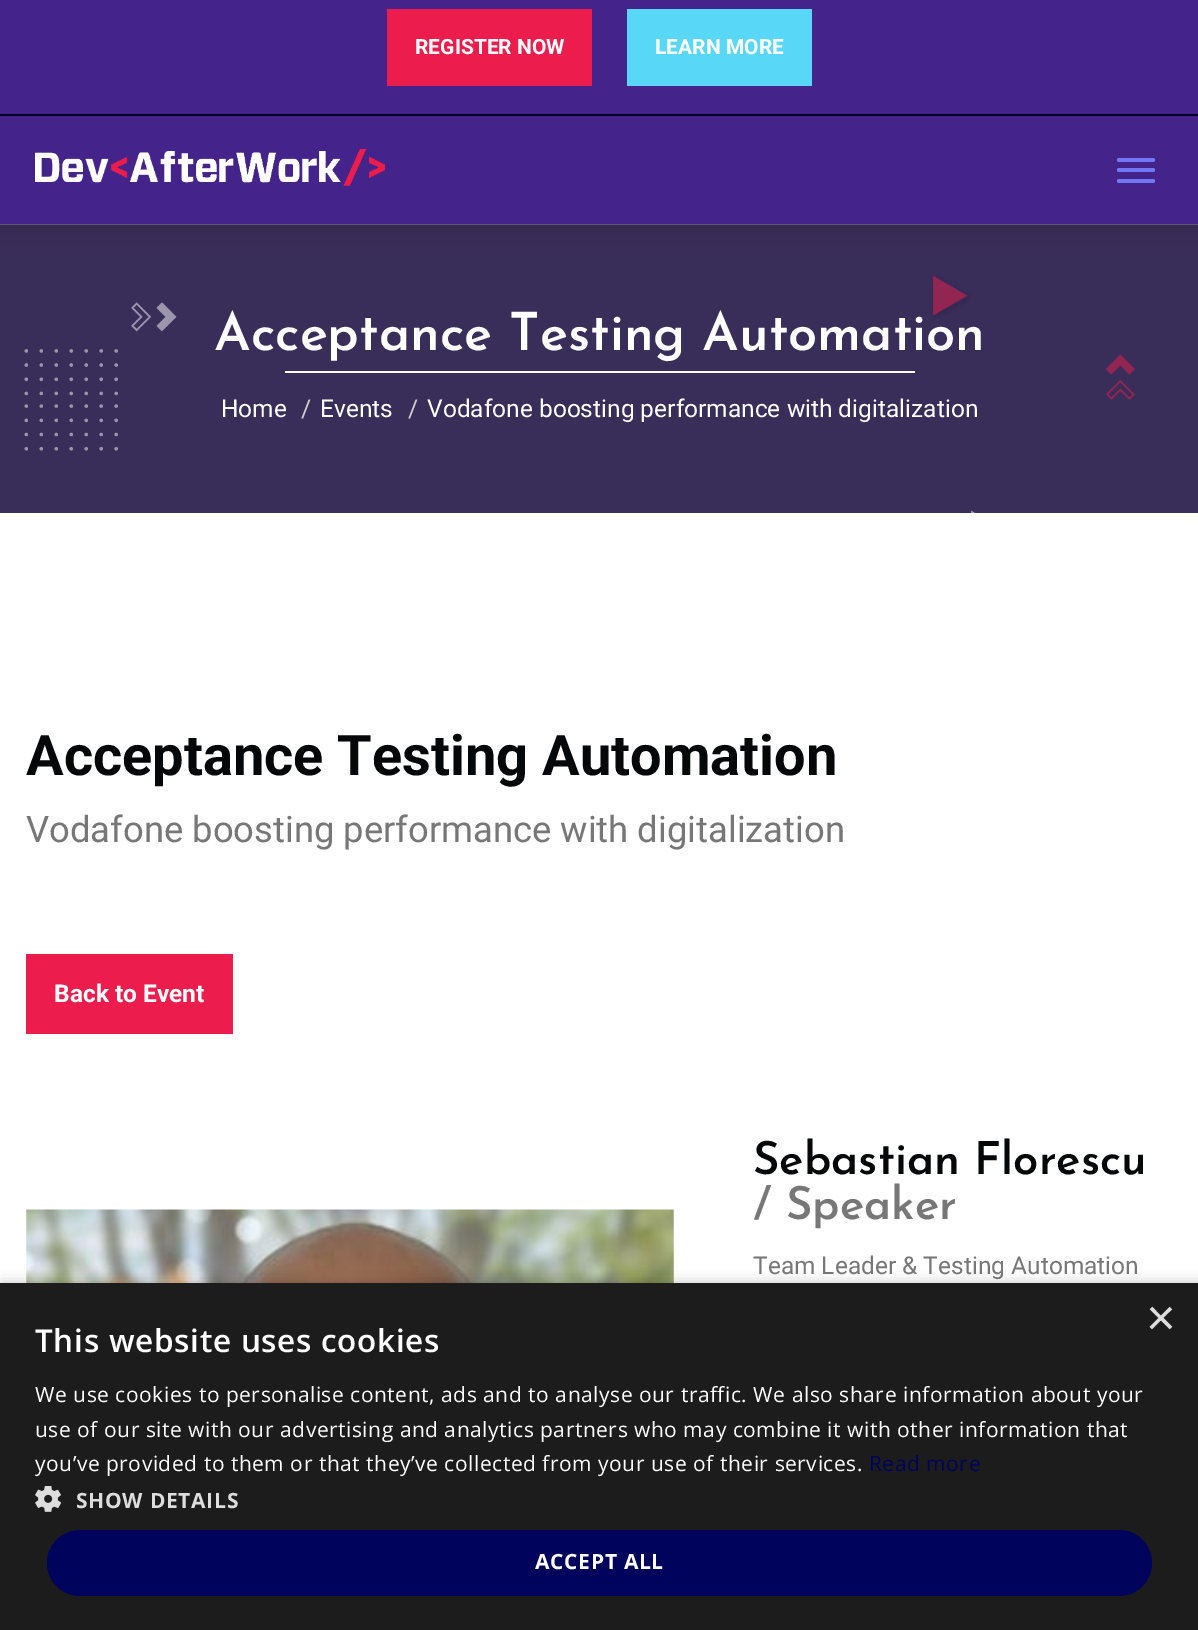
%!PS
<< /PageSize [1198 1630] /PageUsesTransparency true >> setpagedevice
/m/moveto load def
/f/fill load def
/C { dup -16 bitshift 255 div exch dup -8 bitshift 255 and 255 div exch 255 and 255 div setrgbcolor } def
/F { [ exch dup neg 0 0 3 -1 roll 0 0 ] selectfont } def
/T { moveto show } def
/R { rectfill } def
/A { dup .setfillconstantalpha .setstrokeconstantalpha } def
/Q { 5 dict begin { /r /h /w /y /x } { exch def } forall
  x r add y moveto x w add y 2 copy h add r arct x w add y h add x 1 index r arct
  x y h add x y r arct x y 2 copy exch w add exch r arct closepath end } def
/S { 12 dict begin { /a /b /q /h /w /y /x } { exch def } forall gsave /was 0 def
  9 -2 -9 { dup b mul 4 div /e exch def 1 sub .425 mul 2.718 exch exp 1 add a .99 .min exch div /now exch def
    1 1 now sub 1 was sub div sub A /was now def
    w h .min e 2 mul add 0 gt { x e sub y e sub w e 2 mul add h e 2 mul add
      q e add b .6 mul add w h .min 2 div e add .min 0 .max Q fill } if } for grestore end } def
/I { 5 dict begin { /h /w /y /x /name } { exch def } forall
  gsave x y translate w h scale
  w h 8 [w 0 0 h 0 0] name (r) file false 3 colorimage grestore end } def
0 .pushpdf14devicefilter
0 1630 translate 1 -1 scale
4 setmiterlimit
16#FFFFFF C
0 0 1198 1630 R
(2.rgb) 0 224 1198 289 I
16#000000 C
0 -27 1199 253 0 9 .2 S
16#44238B C
0 0 1198 114 R
16#EC1D4C C
387 9 205 77 R
/Roboto-Bold 21 F
16#FFFFFF C
(REGISTER NOW) 415 54 T
16#58D8F6 C
627 9 185 77 R
16#FFFFFF C
(LEARN MORE) 655 54 T
16#44238B C
0 116 1198 108 R
16#01021F C
0 114 1198 2 R
(1.rgb) 35 149 350 37 I
16#7277FA C
1117 158 38 4 2 Q f
1117 168 38 4 2 Q f
1117 179 38 4 2 Q f
/JosefinSans-Thin 52.5 F
16#FFFFFF C
(Acceptance Testing Automation) 214 350 T
285 371 630 2 R
/Roboto-Regular 24.5 F
(Home) 221 417 T
16#D0D0D0 C
(/) 301 417 T
16#FFFFFF C
(Events) 320 417 T
16#D0D0D0 C
(/) 408 417 T
16#FFFFFF C
(Vodafone boosting performance with digitalization) 427 417 T
/Roboto-Bold 56 F
16#050709 C
(Acceptance Testing Automation) 26 775 T
/Roboto-Regular 36.4 F
16#777777 C
(Vodafone boosting performance with digitalization) 26 842 T
16#EC1D4C C
26 954 207 80 R
/Roboto-Bold 24.5 F
16#FFFFFF C
(Back to Event) 54 1002 T
(3.rgb) 26 1209 648 74 I
/JosefinSans-Thin 45.5 F
16#050709 C
(Sebastian Florescu) 753 1174 T
16#777777 C
(/ Speaker) 753 1219 T
/Roboto-Regular 24.5 F
(Team Leader & Testing Automation) 753 1274 T
16#000000 C
2 1286 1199 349 0 7 .35 S
16#1C1C1C C
0 1283 1198 347 R
/LiberationSans-Regular 51 F
16#DDDDDD C
(×) 1146 1335 T
/OpenSans-SemiBold 31.5 F
16#FFFFFF C
35 1352 m .7 0 (This website uses cookies) ashow
/OpenSans-Regular 21 F
35 1402 m .53 0 (We use cookies to personalise content, ads and to analyse our traffic. We also share information about your) ashow
35 1437 m .53 0 (use of our site with our advertising and analytics partners who may combine it with other information that) ashow
35 1471 m .53 0 (you’ve provided to them or that they’ve collected from your use of their services.) ashow
16#00035B C
869 1471 m .53 0 (Read more) ashow
(4.rgb) 35 1486 26 26 I
/OpenSans-Bold 21 F
16#DDDDDD C
76 1508 m .7 0 (SHOW DETAILS) ashow
16#00035B C
47 1530 1105 66 33 Q f
16#FFFFFF C
535 1569 m .7 0 (ACCEPT ALL) ashow
.poppdf14devicefilter showpage
